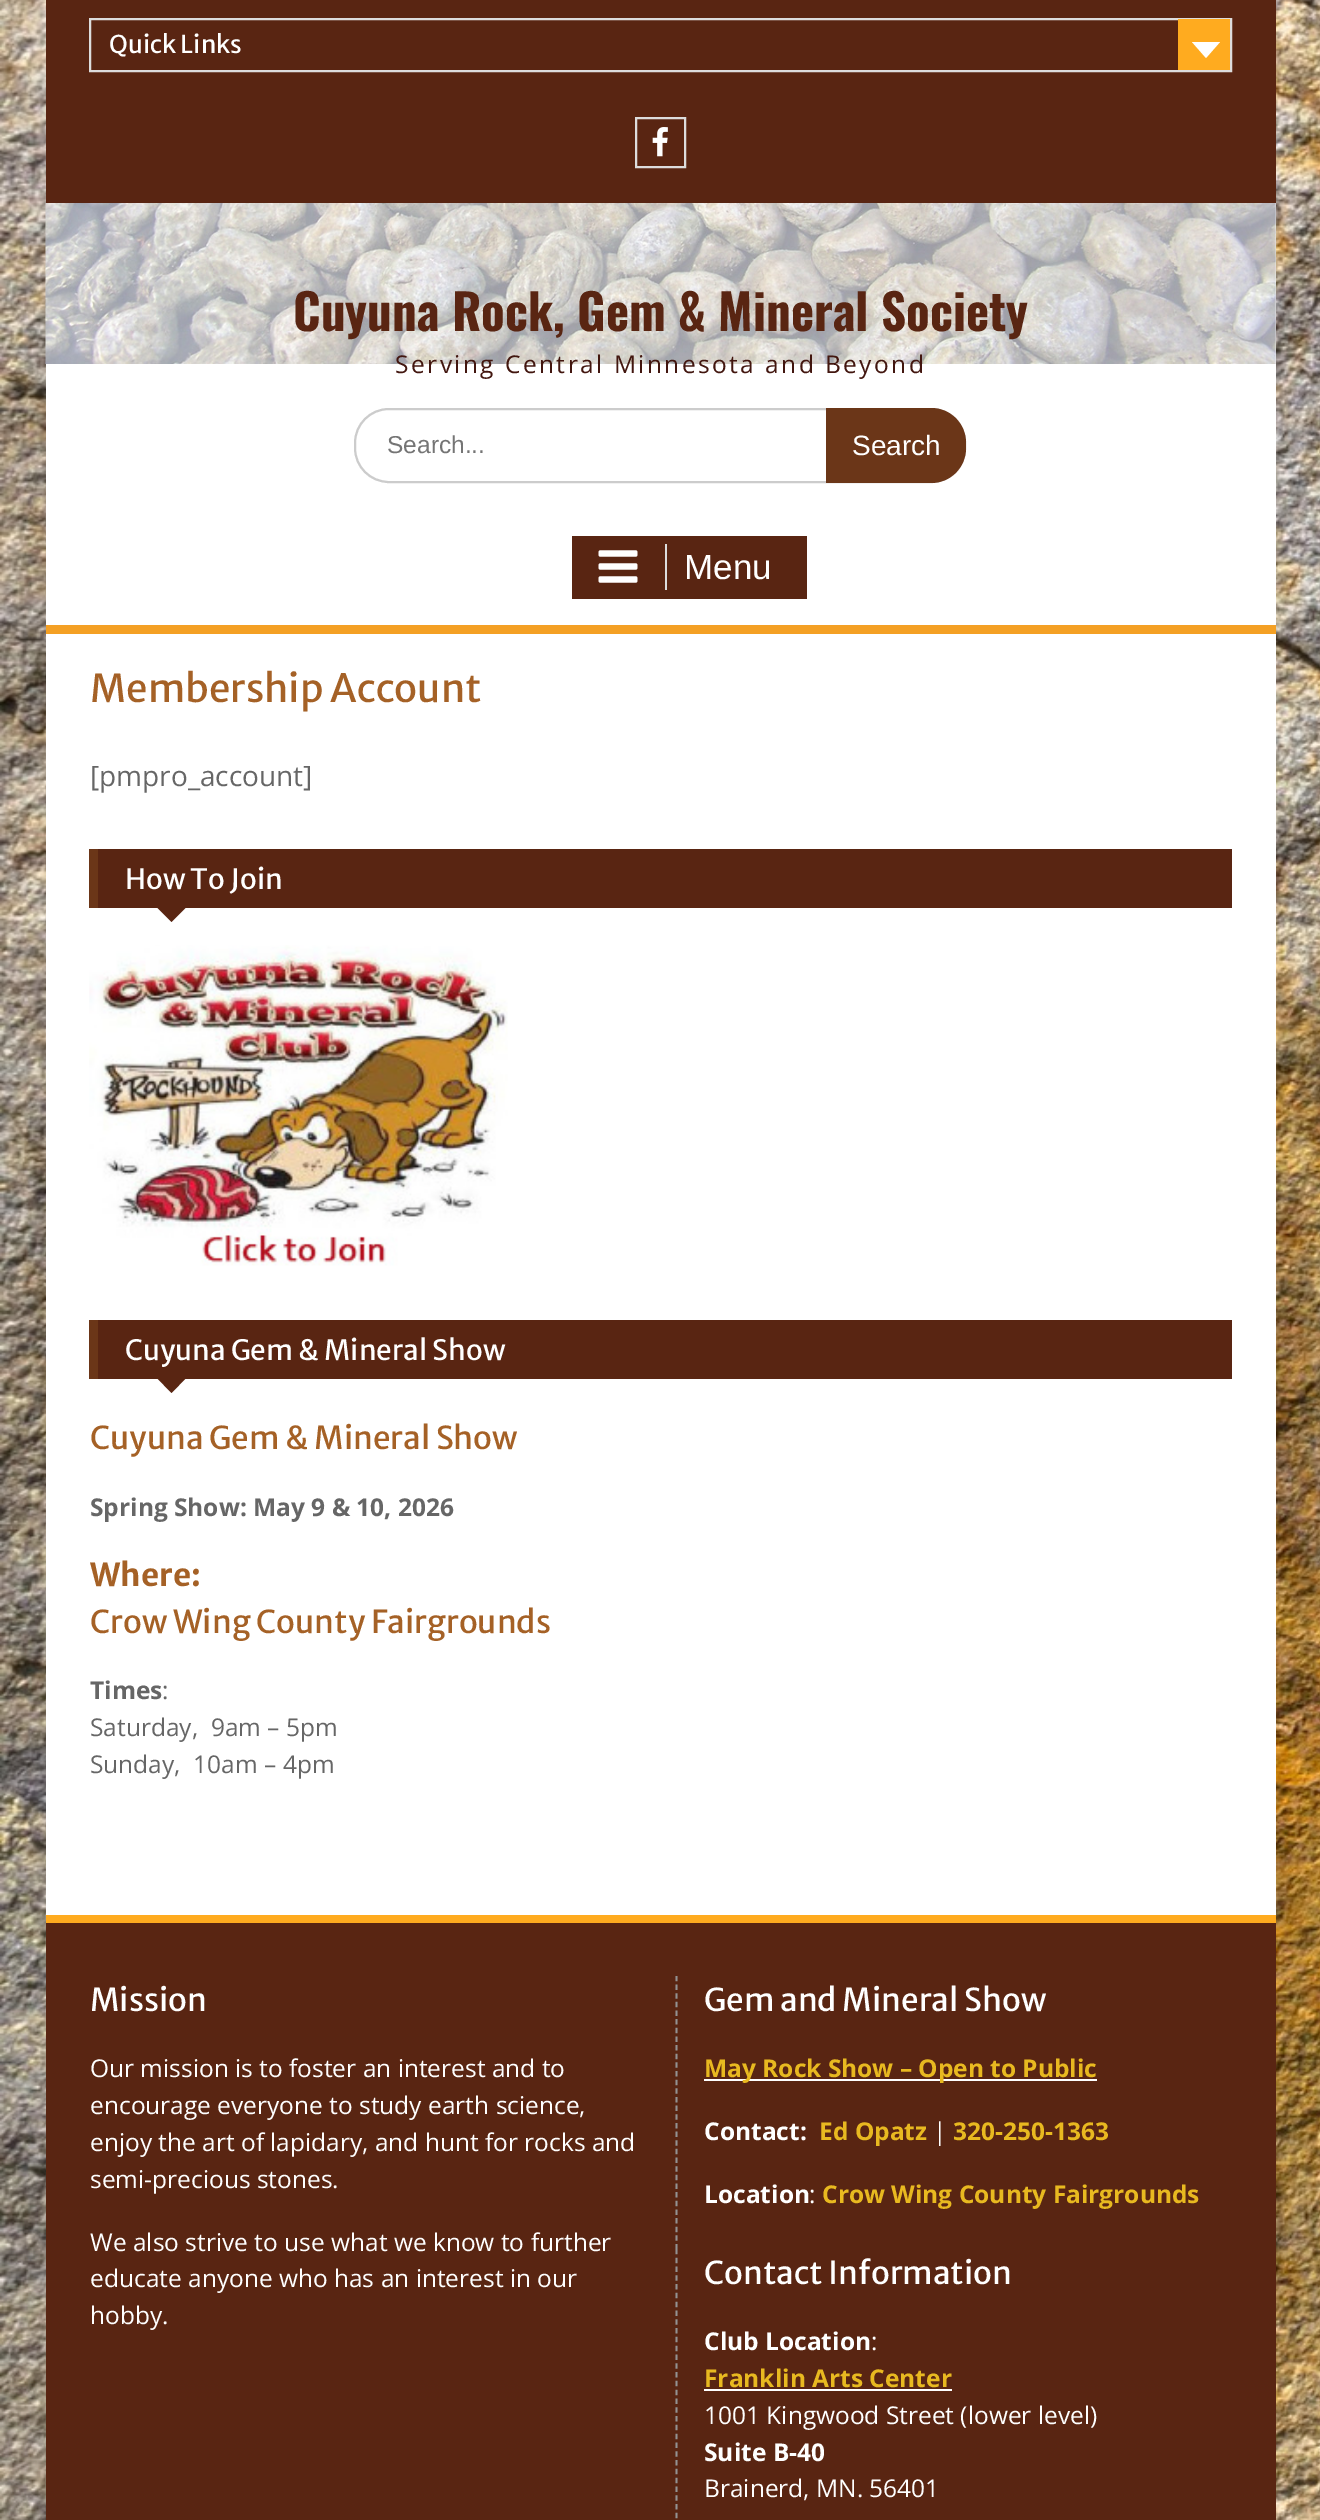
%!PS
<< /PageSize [1320 2520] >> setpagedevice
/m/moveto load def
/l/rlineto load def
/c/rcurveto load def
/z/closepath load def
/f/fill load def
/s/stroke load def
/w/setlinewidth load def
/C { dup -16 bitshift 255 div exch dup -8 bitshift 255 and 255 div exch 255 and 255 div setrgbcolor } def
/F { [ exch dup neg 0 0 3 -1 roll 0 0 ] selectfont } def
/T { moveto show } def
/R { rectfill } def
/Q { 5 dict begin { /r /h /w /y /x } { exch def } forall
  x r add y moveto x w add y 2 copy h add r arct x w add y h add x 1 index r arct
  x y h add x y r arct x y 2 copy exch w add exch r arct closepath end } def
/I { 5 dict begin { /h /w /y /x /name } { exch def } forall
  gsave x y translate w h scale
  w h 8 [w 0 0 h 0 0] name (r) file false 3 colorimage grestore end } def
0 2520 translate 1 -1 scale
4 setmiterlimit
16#FFFFFF C
0 0 1320 2520 R
(1.rgb) 0 0 1320 2520 I
46 203 1230 1712 R
16#592512 C
46 0 1230 203 R
16#DDDDDD C
2 w
90 19 1141 52 rectstroke
/MerriweatherSans-Regular 24.5 F
16#FFFFFF C
(Quick Links) 109 53 T
16#FFAB1F C
1178 19 52 51 R
16#FFFFFF C
1192 42 m 28 0 l -14 16 l z f
16#DDDDDD C
636 118 49 49 rectstroke
(2.rgb) 652 127 16 30 I
(3.rgb) 45 203 1231 161 I
/Oswald-Bold 49 F
16#592512 C
(Cuyuna Rock, Gem & Mineral Society) 293 331 T
/OpenSans-Regular 24.5 F
16#42160F C
395 373 m 2.45 0 (Serving Central Minnesota and Beyond) ashow
16#CCCCCC C
355 409 610 73 34 Q s
/LiberationSans-Regular 24.5 F
16#757575 C
(Search...) 387 453 T
16#6B3618 C
826 408 m 105 0 l 19.5 0 35 15.5 35 35 c 0 5 l 0 19.5 -15.5 35 -35 35 c -105 0 l z f
/LiberationSans-Regular 28 F
16#FFFFFF C
(Search) 852 455 T
16#F4A024 C
46 625 1230 9 R
16#592512 C
572 536 235 63 R
16#DDDDDD C
665 544 2 46 R
(4.rgb) 598 550 40 33 I
/LiberationSans-Regular 35 F
16#FFFFFF C
(Menu) 684 579 T
/MerriweatherSans-Regular 38.5 F
16#A56126 C
(Membership Account) 90 702 T
/OpenSans-Regular 28 F
16#666666 C
([pmpro_account]) 90 786 T
16#592512 C
98 849 1134 59 R
16#6B3618 C
89 849 9 59 R
/MerriweatherSans-Regular 28 F
16#FFFFFF C
(How To Join) 125 889 T
16#592512 C
156 906.5 m 31 0 l -15.5 15.5 l z f
(5.rgb) 89 945 419 321 I
98 1320 1134 59 R
16#6B3618 C
89 1320 9 59 R
16#FFFFFF C
(Cuyuna Gem & Mineral Show) 125 1360 T
16#592512 C
156 1377 m 31 0 l -15.5 16 l z f
/MerriweatherSans-Regular 31.5 F
16#A56126 C
(Cuyuna Gem & Mineral Show) 90 1449 T
/OpenSans-Bold 24.5 F
16#666666 C
(Spring Show: May 9 & 10, 2026) 90 1516 T
/MerriweatherSans-Bold 31.5 F
16#A56126 C
(Where:) 90 1586 T
/MerriweatherSans-Regular 31.5 F
(Crow Wing County Fairgrounds) 90 1633 T
/OpenSans-Bold 24.5 F
16#666666 C
(Times) 90 1699 T
/OpenSans-Regular 24.5 F
(:) 162 1699 T
(Saturday,  9am – 5pm) 90 1736 T
(Sunday,  10am – 4pm) 90 1773 T
16#592512 C
46 1923 1230 597 R
16#FFAB1F C
46 1915 1230 8 R
/MerriweatherSans-Regular 31.5 F
16#FFFFFF C
(Mission) 90 2011 T
/OpenSans-Regular 24.5 F
(Our mission is to foster an interest and to) 90 2077 T
(encourage everyone to study earth science,) 90 2114 T
(enjoy the art of lapidary, and hunt for rocks and) 90 2151 T
(semi-precious stones.) 90 2188 T
(We also strive to use what we know to further) 90 2251 T
(educate anyone who has an interest in our) 90 2287 T
(hobby.) 90 2324 T
16#939393 C
1.8 w
[5.25 3.4] 0 setdash
676.5 1976 m 0 273 l s
/MerriweatherSans-Regular 31.5 F
16#FFFFFF C
(Gem and Mineral Show) 704 2011 T
704 2079 393 2 R
/OpenSans-Bold 24.5 F
16#E8B920 C
(May Rock Show – Open to Public) 704 2077 T
16#FFFFFF C
(Contact:) 704 2140 T
16#E8B920 C
(Ed Opatz) 819 2140 T
/OpenSans-Regular 24.5 F
16#FFFFFF C
(|) 933 2140 T
/OpenSans-Bold 24.5 F
16#E8B920 C
(320-250-1363) 953 2140 T
16#FFFFFF C
(Location) 704 2203 T
/OpenSans-Regular 24.5 F
(:) 809 2203 T
/OpenSans-Bold 24.5 F
16#E8B920 C
(Crow Wing County Fairgrounds) 822 2203 T
16#939393 C
[5.25 3.55] 0 setdash
676.5 2249 m 0 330.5 l s
/MerriweatherSans-Regular 31.5 F
16#FFFFFF C
(Contact Information) 704 2284 T
/OpenSans-Bold 24.5 F
(Club Location) 704 2350 T
/OpenSans-Regular 24.5 F
(:) 871 2350 T
/OpenSans-Bold 24.5 F
16#E8B920 C
(Franklin Arts Center) 704 2387 T
16#FFFFFF C
704 2389 248 2 R
/OpenSans-Regular 24.5 F
(1001 Kingwood Street \(lower level\)) 704 2424 T
/OpenSans-Bold 24.5 F
(Suite B-40) 704 2461 T
/OpenSans-Regular 24.5 F
(Brainerd, MN. 56401) 704 2497 T
showpage
